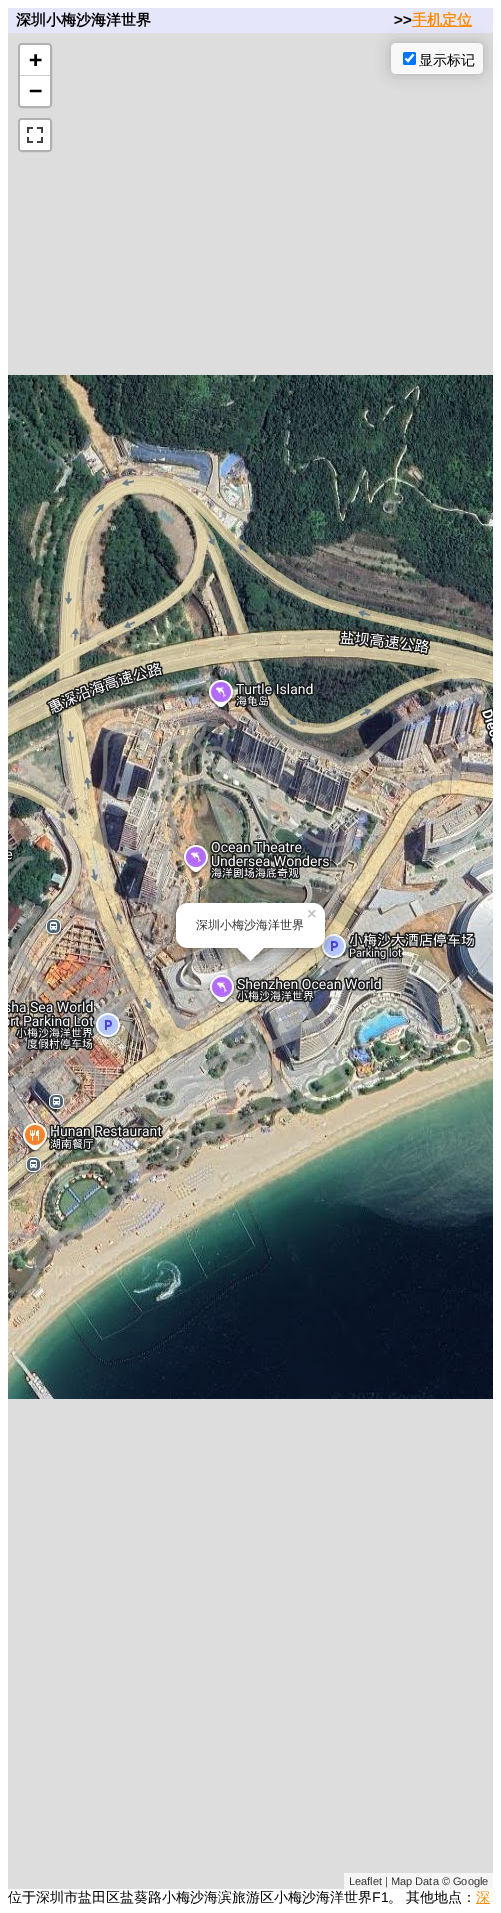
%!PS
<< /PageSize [501 1913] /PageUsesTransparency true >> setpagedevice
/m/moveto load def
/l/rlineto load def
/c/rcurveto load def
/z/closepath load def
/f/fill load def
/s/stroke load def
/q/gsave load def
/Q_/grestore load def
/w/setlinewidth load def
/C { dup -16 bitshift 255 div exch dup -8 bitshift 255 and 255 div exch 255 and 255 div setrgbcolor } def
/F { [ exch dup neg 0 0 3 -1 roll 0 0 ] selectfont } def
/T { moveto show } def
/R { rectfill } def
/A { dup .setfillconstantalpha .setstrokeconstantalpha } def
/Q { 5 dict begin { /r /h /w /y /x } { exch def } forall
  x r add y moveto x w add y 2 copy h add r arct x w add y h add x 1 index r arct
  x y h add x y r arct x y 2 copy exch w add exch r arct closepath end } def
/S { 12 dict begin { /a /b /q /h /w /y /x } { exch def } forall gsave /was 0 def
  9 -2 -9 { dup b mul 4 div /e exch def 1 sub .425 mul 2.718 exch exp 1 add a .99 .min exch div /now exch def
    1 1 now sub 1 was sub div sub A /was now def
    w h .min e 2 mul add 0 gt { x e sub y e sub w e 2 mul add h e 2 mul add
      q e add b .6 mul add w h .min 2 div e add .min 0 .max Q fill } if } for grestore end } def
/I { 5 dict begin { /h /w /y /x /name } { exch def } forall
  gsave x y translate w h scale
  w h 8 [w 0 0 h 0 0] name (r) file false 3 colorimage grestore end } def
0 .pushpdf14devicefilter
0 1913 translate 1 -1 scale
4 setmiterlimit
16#FFFFFF C
0 0 501 1913 R
16#E6E6FA C
8 8 485 25 R
/WenQuanYiZenHei-Bold 15 F
16#000000 C
(深圳小梅沙海洋世界) 16 25 T
/LiberationSans-Bold 15 F
(>>) 394 25 T
16#FF8C00 C
412 26 60 1 R
/WenQuanYiZenHei-Bold 15 F
(手机定位) 412 25 T
16#DDDDDD C
8 33 485 1856 R
16#B1B1B1 C
2 w
19 44 32 63 3 Q s
16#FFFFFF C
22 45 m 26 0 l 1 0 2 1 2 2 c 0 29 l -30 0 l 0 -29 l 0 -1 1 -2 2 -2 c z f
16#CCCCCC C
20 75 30 1 R
/DejaVuSansMono-Bold 22 F
16#000000 C
(+) 29 67 T
16#FFFFFF C
20 76 m 30 0 l 0 28 l 0 1 -1 2 -2 2 c -26 0 l -1 0 -2 -1 -2 -2 c z f
16#000000 C
(−) 29 98 T
16#B1B1B1 C
19 119 32 32 3 Q s
16#FFFFFF C
20 120 30 30 2 Q f
(1.rgb) 27 127 16 16 I
q
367 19 m 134 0 l 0 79 l -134 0 l z 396 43 m 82 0 l 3 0 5 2 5 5 c 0 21 l 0 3 -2 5 -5 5 c -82 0 l -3 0 -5 -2 -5 -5 c 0 -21 l 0 -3 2 -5 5 -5 c z eoclip newpath
16#000000 C
391 43 92 31 5 7.5 .2 S
Q_
0.8 A
391 43 92 31 5 Q f
1 A
16#0075FF C
403 52 13 13 2 Q f
16#FFFFFF C
2.1 w
405.5 58.5 m 2.5 2.5 l 5.5 -6.5 l s
/WenQuanYiZenHei-Medium 14 F
16#000000 C
(显示标记) 419 65 T
16#F5F5F5 C
344 1873 149 16 R
/LiberationSans-Regular 11 F
16#333333 C
(Leaflet | Map Data © Google) 349 1885 T
(2.rgb) 8 375 40 256 I
(3.rgb) 48 375 256 256 I
(4.rgb) 304 375 189 256 I
(5.rgb) 8 631 40 256 I
(6.rgb) 48 631 256 256 I
(7.rgb) 304 631 189 256 I
(8.rgb) 8 887 40 256 I
(9.rgb) 48 887 256 256 I
(10.rgb) 304 887 189 256 I
(11.rgb) 8 1143 40 256 I
(12.rgb) 48 1143 256 256 I
(13.rgb) 304 1143 189 256 I
16#000000 C
176 906 149 45 12 7 .4 S
16#FFFFFF C
176 903 149 45 12 Q f
/LiberationSans-Bold 16 F
16#C3C3C3 C
(×) 307 919 T
/WenQuanYiZenHei-Medium 12 F
16#333333 C
(深圳小梅沙海洋世界) 196 929 T
q
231 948 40 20 rectclip
16#000000 C
241 941 19 19 0 7 .4 S
Q_
q
231 948 40 20 rectclip
16#FFFFFF C
250.5 934 m 13.5 13.5 l -13.5 13.5 l -13.5 -13.5 l z f
Q_
/WenQuanYiZenHei-Medium 14 F
16#000000 C
(位于深圳市盐田区盐葵路小梅沙海滨旅游区小梅沙海洋世界) 8 1902 T
/LiberationSans-Regular 14 F
(F1) 372 1902 T
/WenQuanYiZenHei-Medium 14 F
(。 其他地点：) 388 1902 T
16#FF8C00 C
476 1903 14 1 R
(深) 476 1902 T
.poppdf14devicefilter showpage
